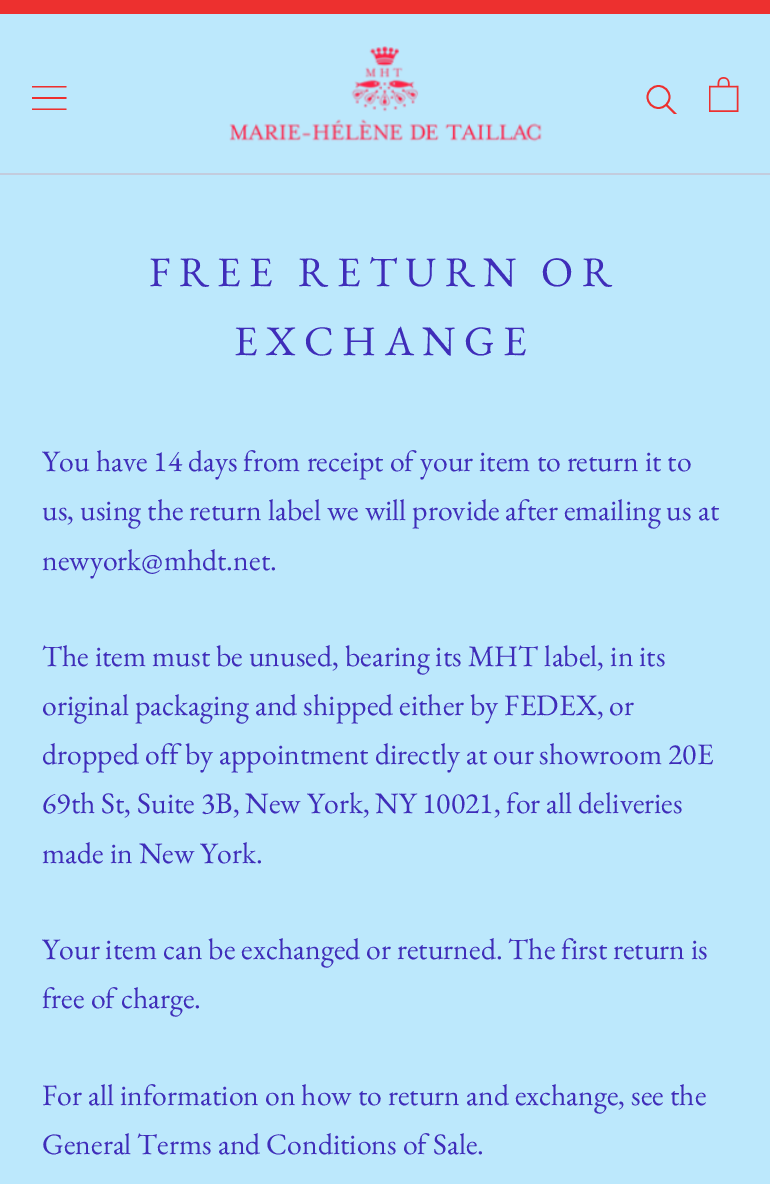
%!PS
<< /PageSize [770 1184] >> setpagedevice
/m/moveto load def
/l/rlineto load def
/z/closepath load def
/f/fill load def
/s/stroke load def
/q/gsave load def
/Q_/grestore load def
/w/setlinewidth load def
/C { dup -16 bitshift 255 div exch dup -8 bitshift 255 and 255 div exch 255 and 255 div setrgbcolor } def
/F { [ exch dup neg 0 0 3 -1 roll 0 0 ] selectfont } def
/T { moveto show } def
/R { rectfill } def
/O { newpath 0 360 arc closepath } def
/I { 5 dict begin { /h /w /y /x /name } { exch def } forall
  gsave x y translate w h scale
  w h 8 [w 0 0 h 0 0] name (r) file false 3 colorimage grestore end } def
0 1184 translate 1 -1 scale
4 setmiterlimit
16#BCE8FC C
0 0 770 1184 R
16#ED302F C
0 0 770 14 R
16#C3CCDD C
0 173 770 2 R
q
32 86 35 24 rectclip
16#ED302F C
31.5 110 m 0 -1.5 l 35 0 l 0 1.5 l z 31.5 97 m 35 0 l 0 2 l -35 0 l z 31.5 86 m 35 0 l 0 1.5 l -35 0 l z f
Q_
(1.rgb) 229 46 313 96 I
q
646 84 31 30 rectclip
16#ED302F C
1.8 w
2 setlinecap
675.5 114 m -9 -9 l s
Q_
16#ED302F C
1.8 w
658.5 97 11 O s
(2.rgb) 709 77 30 35 I
/EBGaramond-Regular 42 F
16#3F2DB9 C
149 286 m 8.4 0 (FREE RETURN OR) ashow
234 355 m 8.4 0 (EXCHANGE) ashow
/EBGaramond-Regular 29.75 F
(You have 14 days from receipt of your item to return it to) 42 471 T
(us, using the return label we will provide after emailing us at) 42 520 T
(newyork@mhdt.net.) 42 570 T
(The item must be unused, bearing its MHT label, in its) 42 666 T
(original packaging and shipped either by FEDEX, or) 42 715 T
(dropped off by appointment directly at our showroom 20E) 42 764 T
(69th St, Suite 3B, New York, NY 10021, for all deliveries) 42 813 T
(made in New York.) 42 863 T
(Your item can be exchanged or returned. The first return is) 42 959 T
(free of charge.) 42 1008 T
(For all information on how to return and exchange, see the) 42 1105 T
(General Terms and Conditions of Sale.) 42 1154 T
showpage
